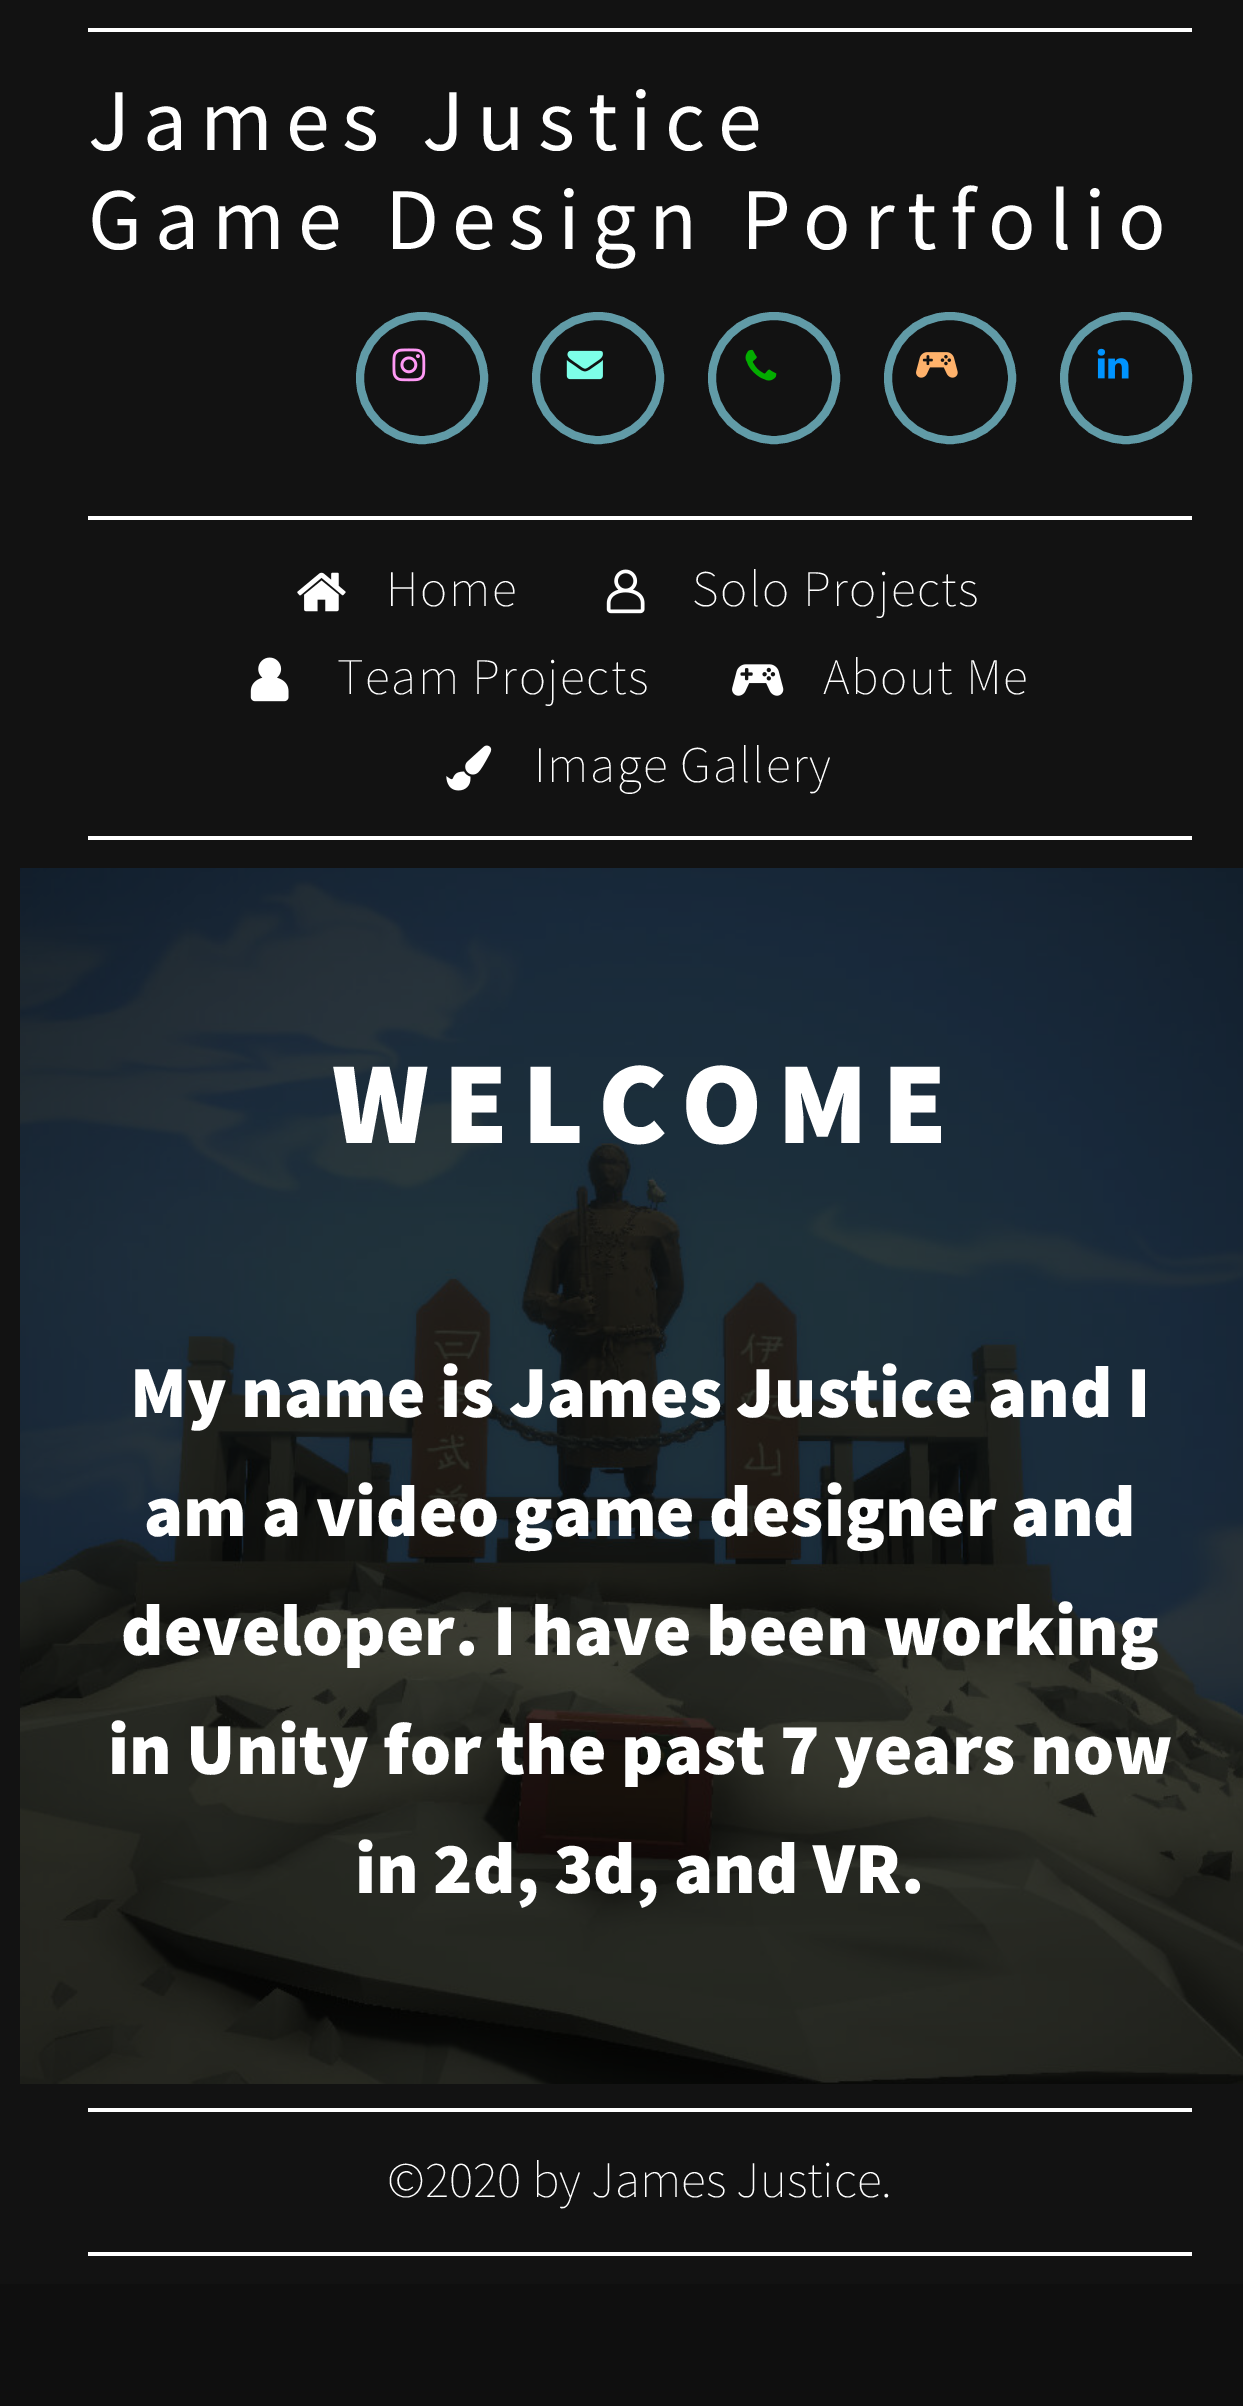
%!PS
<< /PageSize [1243 2406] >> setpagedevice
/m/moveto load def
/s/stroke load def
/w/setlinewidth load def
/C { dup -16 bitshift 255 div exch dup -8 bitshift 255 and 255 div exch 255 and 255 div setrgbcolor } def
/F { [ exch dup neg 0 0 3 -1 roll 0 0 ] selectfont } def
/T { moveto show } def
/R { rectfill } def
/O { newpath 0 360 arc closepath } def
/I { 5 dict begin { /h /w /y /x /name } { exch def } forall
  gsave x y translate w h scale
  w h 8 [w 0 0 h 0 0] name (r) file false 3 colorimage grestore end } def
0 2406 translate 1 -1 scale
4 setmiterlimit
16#0F0F0F C
0 0 1243 2406 R
16#121212 C
0 0 1243 2284 R
16#FFFFFF C
88 28 1104 4 R
/SourceSansPro-Regular 88 F
88 150 m 12.8 0 (James Justice) ashow
88 249 m 12.8 0 (Game Design Portfolio) ashow
16#619BA7 C
8 w
422 378 62 O s
(1.rgb) 392 348 34 34 I
598 378 62 O s
(2.rgb) 566 350 37 30 I
774 378 62 O s
(3.rgb) 745 349 32 32 I
950 378 62 O s
(4.rgb) 916 352 42 26 I
1126 378 62 O s
(5.rgb) 1097 348 32 31 I
16#FFFFFF C
88 516 1104 4 R
(6.rgb) 297 572 49 40 I
/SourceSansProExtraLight-ExtraLight 51.25 F
386 606 m 1.5 0 (Home) ashow
(7.rgb) 606 569 39 45 I
692 606 m 1.5 0 (Solo Projects) ashow
(8.rgb) 250 657 39 45 I
337 694 m 1.5 0 (Team Projects) ashow
(9.rgb) 732 664 52 32 I
823 694 m 1.5 0 (About Me) ashow
(10.rgb) 446 745 46 46 I
534 782 m 1.5 0 (Image Gallery) ashow
88 836 1104 4 R
(11.rgb) 20 868 1223 1216 I
/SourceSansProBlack-Black 117.5 F
332 1143 m 14 0 (WELCOME) ashow
/SourceSansProBlack-Black 73.3 F
(My name is James Justice and I) 130 1417 T
(am a video game designer and) 144 1536 T
(developer. I have been working) 121 1655 T
(in Unity for the past 7 years now) 108 1774 T
(in 2d, 3d, and VR.) 355 1893 T
88 2108 1104 4 R
/SourceSansProExtraLight-ExtraLight 51.25 F
(©2020 by James Justice.) 387 2197 T
88 2252 1104 4 R
showpage
